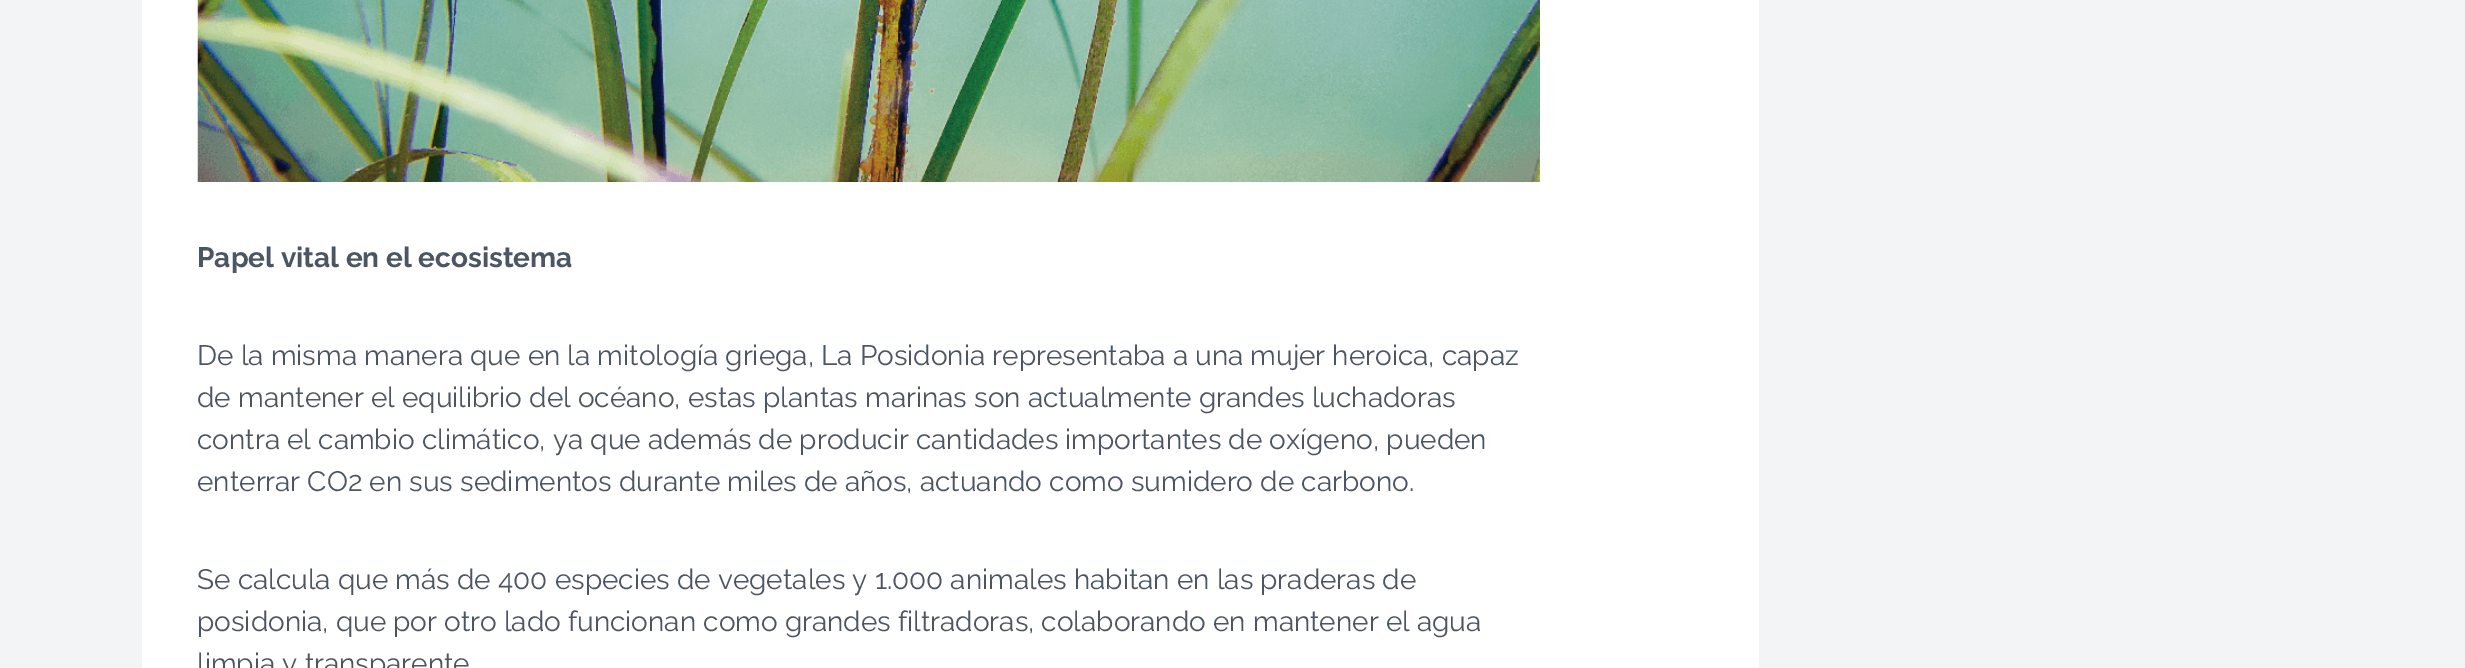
%!PS
<< /PageSize [2465 668] >> setpagedevice
/C { dup -16 bitshift 255 div exch dup -8 bitshift 255 and 255 div exch 255 and 255 div setrgbcolor } def
/F { [ exch dup neg 0 0 3 -1 roll 0 0 ] selectfont } def
/T { moveto show } def
/R { rectfill } def
/I { 5 dict begin { /h /w /y /x /name } { exch def } forall
  gsave x y translate w h scale
  w h 8 [w 0 0 h 0 0] name (r) file false 3 colorimage grestore end } def
0 668 translate 1 -1 scale
4 setmiterlimit
16#F3F4F6 C
0 0 2465 668 R
16#FFFFFF C
142 0 1617 668 R
(1.rgb) 197 0 1343 182 I
/Raleway-Bold 28 F
16#4B5563 C
(Papel vital en el ecosistema) 197 267 T
/Raleway-Regular 28 F
(De la misma manera que en la mitología griega, La Posidonia representaba a una mujer heroica, capaz) 197 365 T
(de mantener el equilibrio del océano, estas plantas marinas son actualmente grandes luchadoras) 197 407 T
(contra el cambio climático, ya que además de producir cantidades importantes de oxígeno, pueden) 197 449 T
(enterrar CO2 en sus sedimentos durante miles de años, actuando como sumidero de carbono.) 197 491 T
(Se calcula que más de 400 especies de vegetales y 1.000 animales habitan en las praderas de) 197 589 T
(posidonia, que por otro lado funcionan como grandes filtradoras, colaborando en mantener el agua) 197 631 T
(limpia y transparente) 197 673 T
showpage
